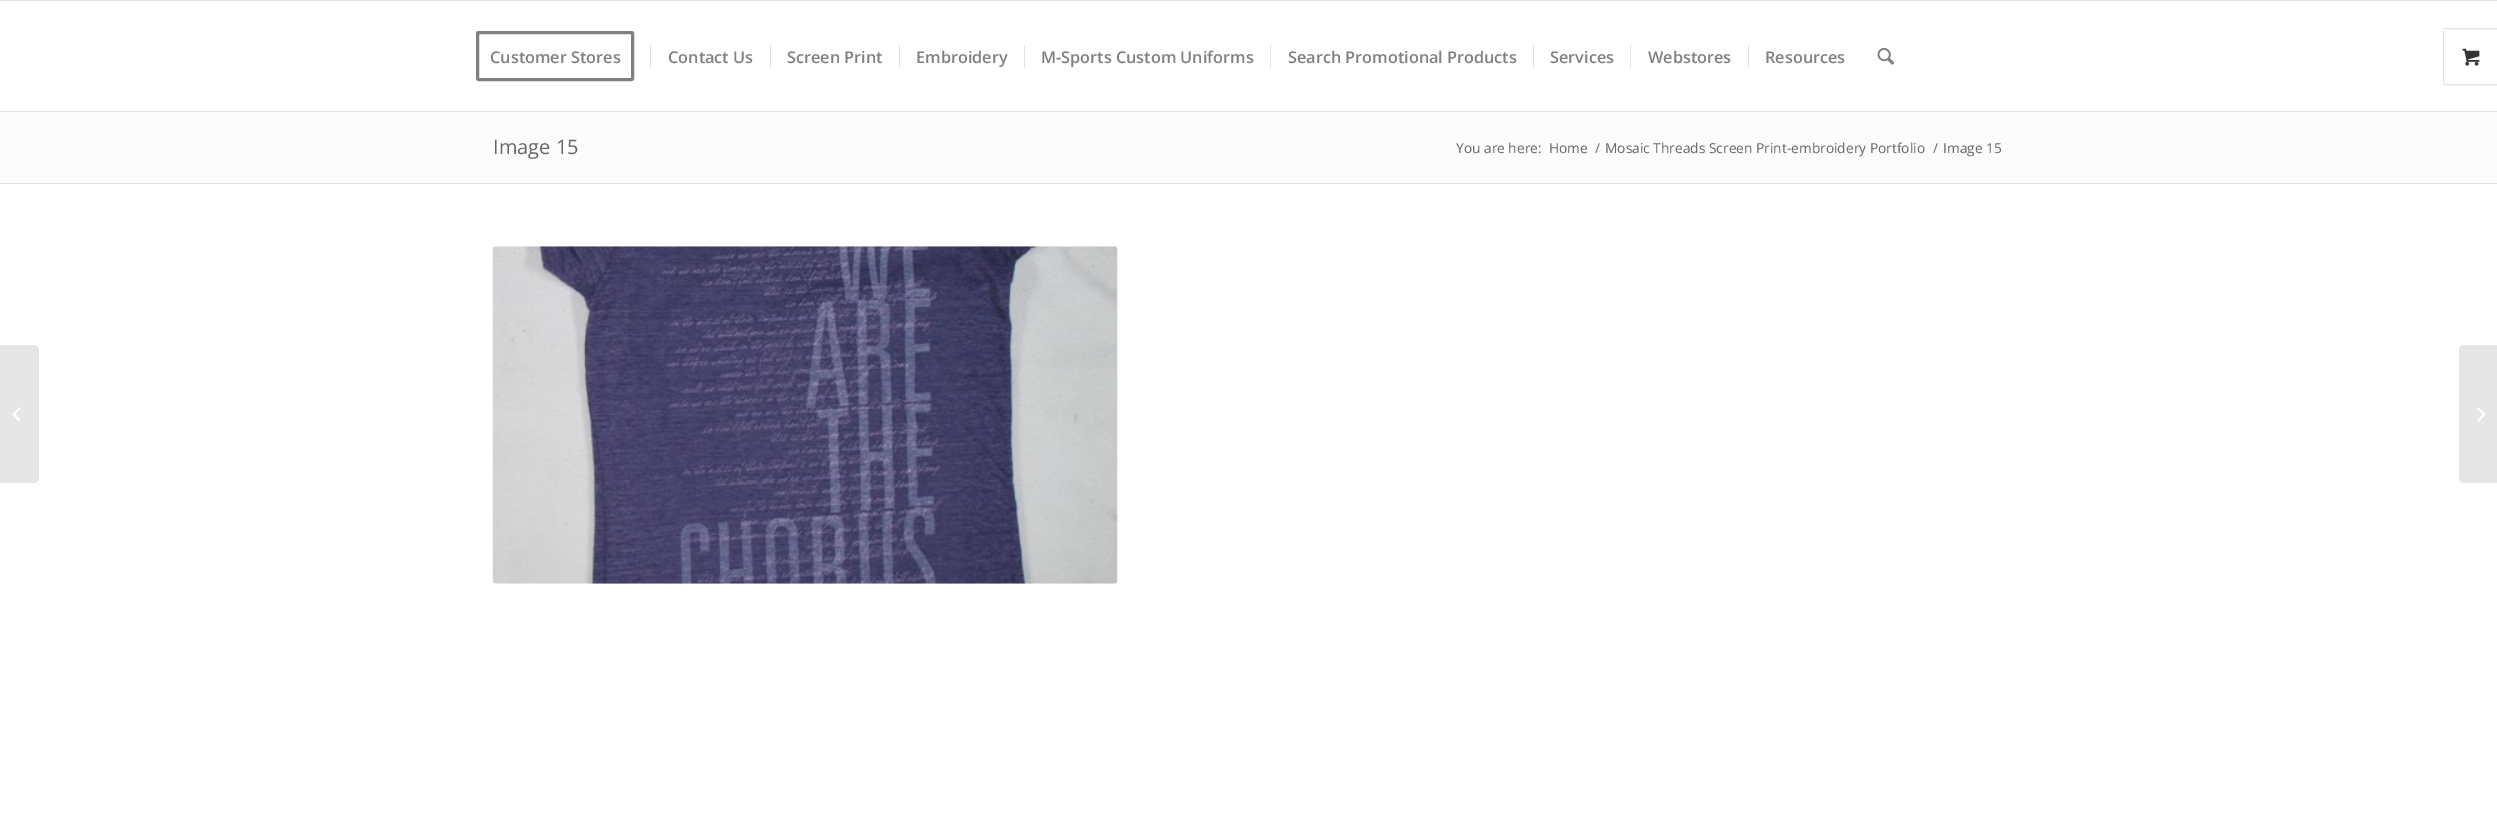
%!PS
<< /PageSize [2497 826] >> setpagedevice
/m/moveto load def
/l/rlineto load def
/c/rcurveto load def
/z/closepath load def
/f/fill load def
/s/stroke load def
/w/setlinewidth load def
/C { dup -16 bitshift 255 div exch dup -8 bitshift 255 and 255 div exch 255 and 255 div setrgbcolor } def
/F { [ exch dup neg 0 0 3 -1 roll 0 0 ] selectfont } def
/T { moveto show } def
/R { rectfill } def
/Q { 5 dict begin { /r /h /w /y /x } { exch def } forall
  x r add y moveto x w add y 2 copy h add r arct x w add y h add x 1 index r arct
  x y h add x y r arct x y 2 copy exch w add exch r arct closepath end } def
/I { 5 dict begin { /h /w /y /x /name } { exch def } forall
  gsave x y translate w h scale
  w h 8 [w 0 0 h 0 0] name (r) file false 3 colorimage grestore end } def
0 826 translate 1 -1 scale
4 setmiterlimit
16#FFFFFF C
0 0 2497 826 R
16#E1E1E1 C
0 0 2497 1 R
0 111 2497 1 R
16#808080 C
3 w
477.5 32.5 155 47 1 Q s
/OpenSans-SemiBold 16.25 F
(Customer Stores) 490 63 T
(Contact Us) 668 63 T
16#E1E1E1 C
650 45 1 23 R
16#808080 C
(Screen Print) 787 63 T
16#E1E1E1 C
770 45 1 23 R
16#808080 C
(Embroidery) 916 63 T
16#E1E1E1 C
899 45 1 23 R
16#808080 C
(M-Sports Custom Uniforms) 1041 63 T
16#E1E1E1 C
1024 45 1 23 R
16#808080 C
(Search Promotional Products) 1288 63 T
16#E1E1E1 C
1270 45 1 23 R
16#808080 C
(Services) 1550 63 T
16#E1E1E1 C
1533 45 1 23 R
16#808080 C
(Webstores) 1648 63 T
16#E1E1E1 C
1630 45 1 23 R
16#808080 C
(Resources) 1765 63 T
16#E1E1E1 C
1748 45 1 23 R
(1.rgb) 1877 47 18 18 I
1 w
2443.5 28.5 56 56 2 Q s
16#FFFFFF C
2444 29 1 55 R
(2.rgb) 2462 48 18 18 I
16#FCFCFC C
0 113 2497 70 R
/OpenSans-Regular 20 F
16#666666 C
(Image 15) 493 154 T
/OpenSans-Regular 13.75 F
(You are here:) 1456 153 T
(Home) 1549 153 T
(/) 1595 153 T
(Mosaic Threads Screen Print-embroidery Portfolio) 1605 153 T
(/) 1933 153 T
(Image 15) 1943 153 T
16#E1E1E1 C
0 183 2497 1 R
(3.rgb) 492 246 626 338 I
16#E6E6E6 C
0 345 m 34 0 l 3 0 5 2 5 5 c 0 128 l 0 3 -2 5 -5 5 c -34 0 l z f
(4.rgb) 12 407 9 15 I
2464 345 m 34 0 l 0 138 l -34 0 l -3 0 -5 -2 -5 -5 c 0 -128 l 0 -3 2 -5 5 -5 c z f
(5.rgb) 2477 407 9 15 I
showpage
